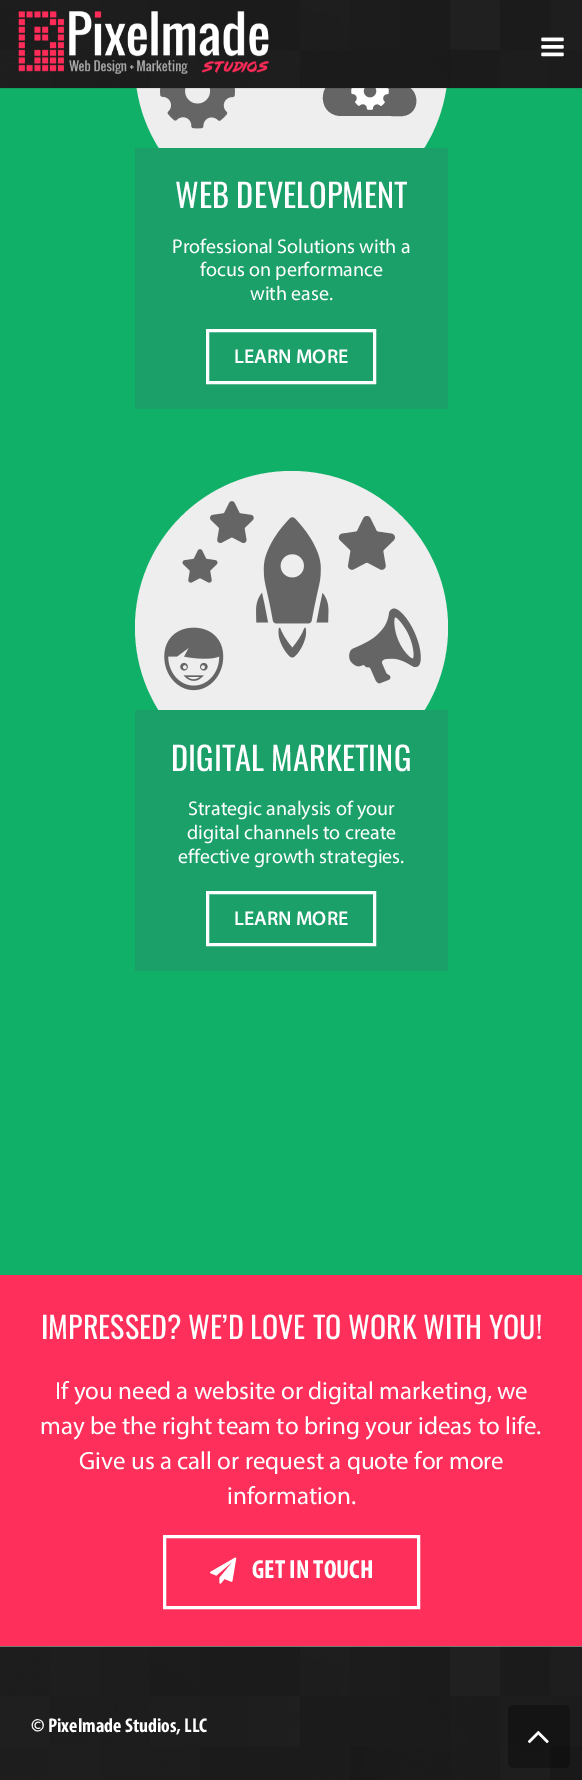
%!PS
<< /PageSize [582 1780] /PageUsesTransparency true >> setpagedevice
/m/moveto load def
/l/rlineto load def
/c/rcurveto load def
/z/closepath load def
/f/fill load def
/w/setlinewidth load def
/C { dup -16 bitshift 255 div exch dup -8 bitshift 255 and 255 div exch 255 and 255 div setrgbcolor } def
/F { [ exch dup neg 0 0 3 -1 roll 0 0 ] selectfont } def
/T { moveto show } def
/R { rectfill } def
/A { dup .setfillconstantalpha .setstrokeconstantalpha } def
/O { newpath 0 360 arc closepath } def
/Q { 5 dict begin { /r /h /w /y /x } { exch def } forall
  x r add y moveto x w add y 2 copy h add r arct x w add y h add x 1 index r arct
  x y h add x y r arct x y 2 copy exch w add exch r arct closepath end } def
/I { 5 dict begin { /h /w /y /x /name } { exch def } forall
  gsave x y translate w h scale
  w h 8 [w 0 0 h 0 0] name (r) file false 3 colorimage grestore end } def
0 .pushpdf14devicefilter
0 1780 translate 1 -1 scale
4 setmiterlimit
16#EEEEEE C
0 0 582 1780 R
16#10B068 C
0 88 582 1187 R
16#EEEEEE C
135 -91 313 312 156 Q f
16#656565 C
401 85 m -4 0 l 0 -30 -44 -36 -51 -6 c -27 -5 -32 35 -6 37 c 51 0 l 4 0 11 1 16 -1 c 15 -6 11 -30 -6 -30 c z f
(1.rgb) 0 0 582 88 I
(4.rgb) 160 88 75 41 I
(5.rgb) 351 88 38 22 I
0.08 A
16#000000 C
0 88 m 0 1 l 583 0 l 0 -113 l -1 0 l 0 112 l z f
1 A
(2.rgb) 18 11 251 63 I
(3.rgb) 541 37 23 20 I
16#1BA06A C
135 148 313 261 R
/Oswald-Regular 32.5 F
16#FFFFFF C
(WEB DEVELOPMENT) 175 208 T
/Myriad-Regular 20 F
(Professional Solutions with a) 172 253 T
(focus on performance) 200 276 T
(with ease.) 250 300 T
3 w
207.5 330.5 167 52 rectstroke
/Myriad-SemiBold 20 F
(LEARN MORE) 234 363 T
16#EEEEEE C
291.5 627.5 156.5 O f
(6.rgb) 182 549 36 34 I
(7.rgb) 210 501 44 43 I
(8.rgb) 256 517 73 141 I
(9.rgb) 338 515 57 55 I
(10.rgb) 164 627 60 64 I
(11.rgb) 349 608 72 76 I
16#1BA06A C
135 710 313 261 R
/Oswald-Regular 32.5 F
16#FFFFFF C
(DIGITAL MARKETING) 171 771 T
/Myriad-Regular 20 F
(Strategic analysis of your) 188 815 T
(digital channels to create) 187 839 T
(effective growth strategies.) 178 863 T
207.5 892.5 167 52 rectstroke
/Myriad-SemiBold 20 F
(LEARN MORE) 234 925 T
16#FE2F5A C
0 1275 582 371 R
/Oswald-Regular 30 F
16#FFFFFF C
(IMPRESSED? WE’D LOVE TO WORK WITH YOU!) 41 1339 T
/Myriad-Regular 25 F
(If you need a website or digital marketing, we) 55 1399 T
(may be the right team to bring your ideas to life.) 40 1434 T
(Give us a call or request a quote for more) 79 1469 T
(information.) 227 1504 T
164.5 1536.5 254 71 rectstroke
(12.rgb) 210 1557 27 27 I
/Myriad-Bold 26.25 F
(GET IN TOUCH) 252 1578 T
(13.rgb) 0 1646 582 134 I
/Myriad-Bold 20 F
(© Pixelmade Studios, LLC) 31 1732 T
0.3 A
16#000000 C
508 1705 62 63 6 Q f
1 A
(14.rgb) 527 1731 22 13 I
.poppdf14devicefilter showpage
